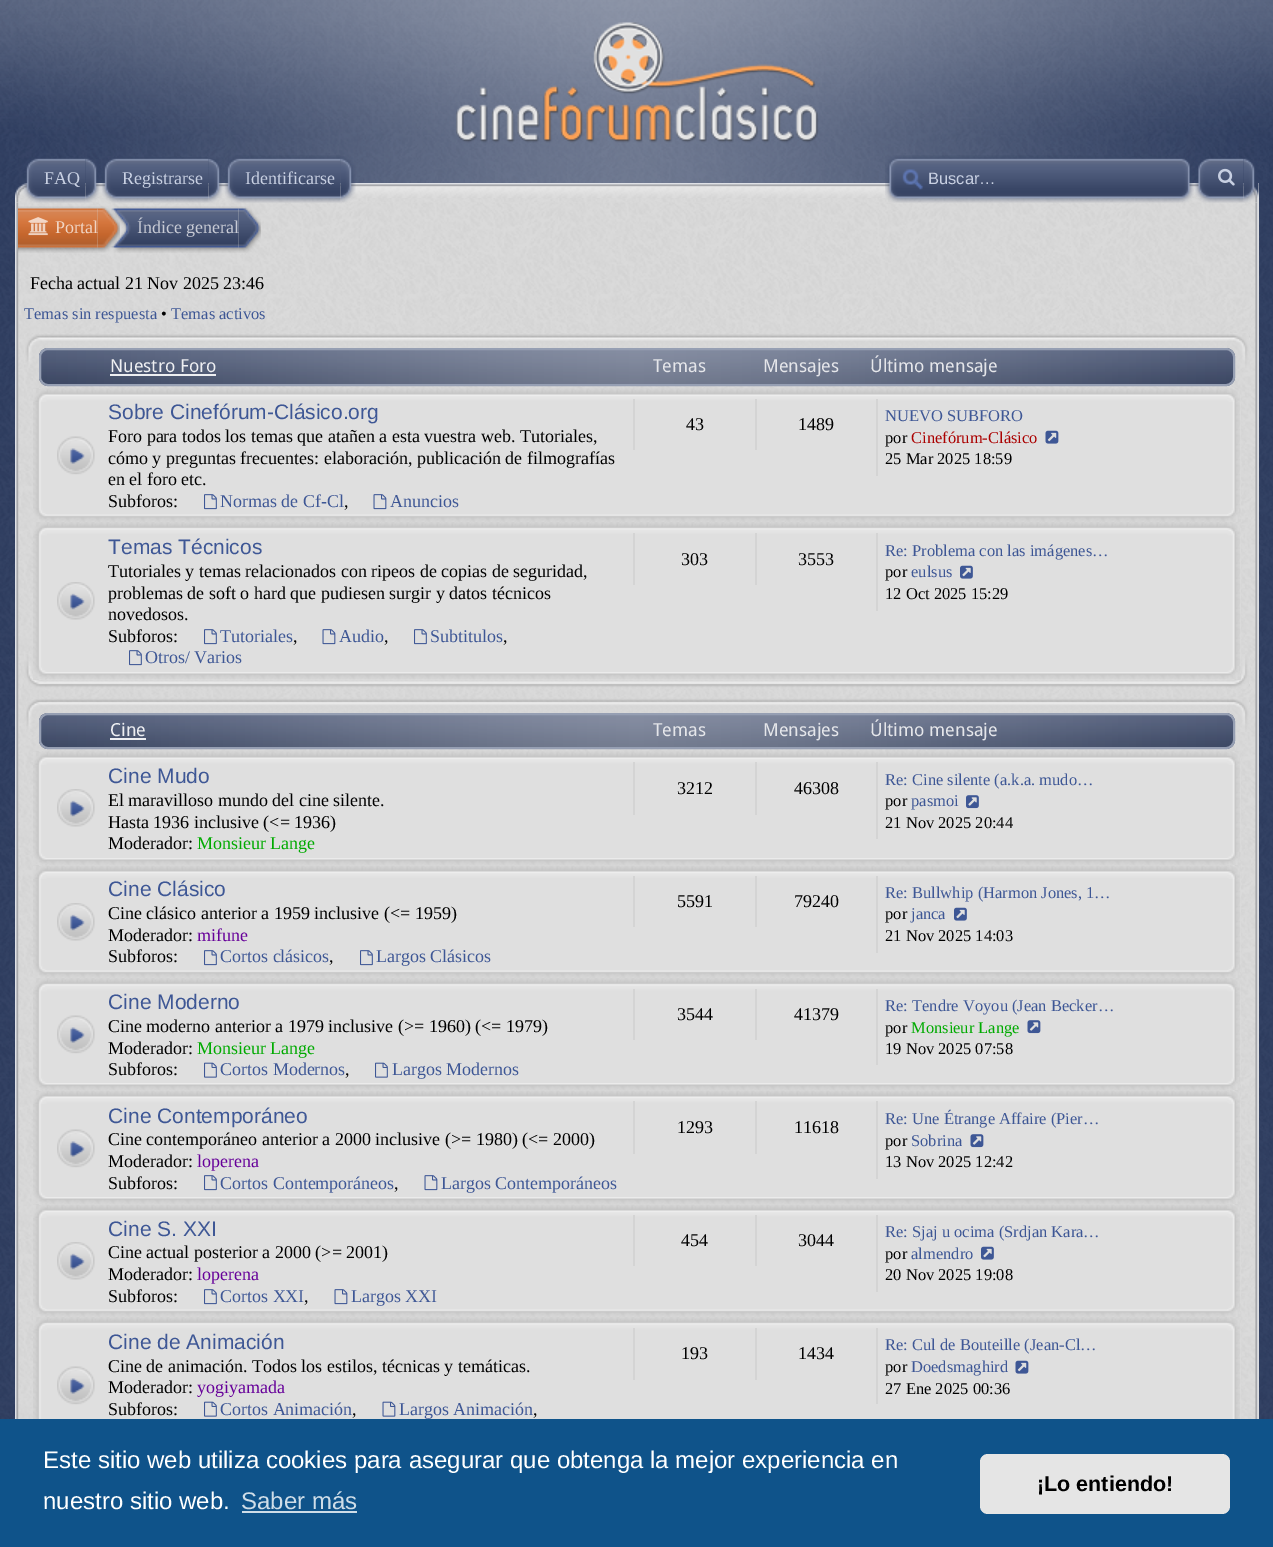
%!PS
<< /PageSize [1273 1547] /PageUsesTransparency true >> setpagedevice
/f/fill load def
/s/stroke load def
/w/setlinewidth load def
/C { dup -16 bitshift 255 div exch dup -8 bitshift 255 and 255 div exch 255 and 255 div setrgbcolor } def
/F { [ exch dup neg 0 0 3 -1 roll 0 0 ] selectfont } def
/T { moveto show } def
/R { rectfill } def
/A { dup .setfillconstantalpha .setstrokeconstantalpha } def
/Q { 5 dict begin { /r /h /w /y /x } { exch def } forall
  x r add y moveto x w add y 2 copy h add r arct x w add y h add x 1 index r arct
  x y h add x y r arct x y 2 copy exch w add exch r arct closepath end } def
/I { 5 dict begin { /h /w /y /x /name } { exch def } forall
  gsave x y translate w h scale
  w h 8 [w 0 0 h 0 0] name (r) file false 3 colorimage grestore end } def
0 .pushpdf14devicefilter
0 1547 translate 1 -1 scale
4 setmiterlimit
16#FFFFFF C
0 0 1273 1547 R
(1.rgb) 0 0 1273 1419 I
(2.rgb) 0 0 1273 183 I
(3.rgb) 456 22 363 121 I
16#DADADA C
15 183 1244 20 R
(4.rgb) 15 183 1244 20 I
(15.rgb) 15 202 1244 1217 I
(5.rgb) 22 158 64 45 I
(6.rgb) 85 158 16 45 I
/LiberationSerif-Regular 18 F
16#C8D0E2 C
(FAQ) 44 184 T
(7.rgb) 100 157 109 46 I
(8.rgb) 208 159 16 44 I
(Registrarse) 122 184 T
(9.rgb) 223 155 118 48 I
(10.rgb) 340 156 16 47 I
(Identificarse) 245 184 T
(11.rgb) 885 155 309 48 I
/LiberationSans-Regular 16.5 F
(Buscar…) 928 184 T
(12.rgb) 1194 158 50 45 I
(13.rgb) 1243 158 16 45 I
(14.rgb) 1218 168 17 18 I
(16.rgb) 97 206 23 47 I
(17.rgb) 18 206 80 47 I
(18.rgb) 28 217 20 19 I
/LiberationSerif-Regular 18 F
16#F0D4C3 C
(Portal) 55 233 T
(19.rgb) 238 206 23 47 I
(20.rgb) 111 206 128 47 I
16#C8CBD5 C
(Índice general) 137 233 T
16#000000 C
(Fecha actual 21 Nov 2025 23:46) 30 289 T
/LiberationSerif-Regular 16.5 F
16#3E5795 C
(Temas sin respuesta) 24 319 T
16#000000 C
(•) 161 319 T
16#3E5795 C
(Temas activos) 171 319 T
(21.rgb) 24 333 1226 356 I
(22.rgb) 39 348 1196 38 I
16#969FB3 C
2 w
40 349 1194 36 8 Q s
/DroidSans-Regular 18 F
16#EEEFF2 C
(Nuestro Foro) 110 372 T
0.9 A
16#FFFFFF C
110 374 106 2 R
1 A
16#E5E6EA C
(Temas) 653 372 T
(Mensajes) 763 372 T
(Último mensaje) 870 372 T
16#DFDFDF C
42 389 1199 133 R
(23.rgb) 33 388 1208 134 I
(24.rgb) 57 436 38 39 I
/LiberationSans-Regular 21 F
16#3E5795 C
(Sobre Cinefórum-Clásico.org) 108 419 T
/LiberationSerif-Regular 18 F
16#000000 C
(Foro para todos los temas que atañen a esta vuestra web. Tutoriales,) 108 442 T
(cómo y preguntas frecuentes: elaboración, publicación de filmografías) 108 464 T
(en el foro etc.) 108 485 T
(Subforos:) 108 507 T
(25.rgb) 204 494 13 16 I
16#3E5795 C
(Normas de Cf-Cl) 220 507 T
16#000000 C
(,) 344 507 T
(26.rgb) 373 494 14 16 I
16#3E5795 C
(Anuncios) 390 507 T
16#D4D4D4 C
633 399 2 51 R
16#000000 C
(43) 686 430 T
16#D4D4D4 C
755 399 2 51 R
16#000000 C
(1489) 798 430 T
16#D4D4D4 C
876 399 2 77 R
/LiberationSerif-Regular 16.5 F
16#3E5795 C
(NUEVO SUBFORO) 885 421 T
16#000000 C
(por) 885 443 T
16#AA0000 C
(Cinefórum-Clásico) 911 443 T
(27.rgb) 1045 430 14 14 I
16#000000 C
(25 Mar 2025 18:59) 885 464 T
16#DFDFDF C
33 522 1208 158 R
(28.rgb) 33 522 1208 158 I
(29.rgb) 57 582 38 38 I
/LiberationSans-Regular 21 F
16#3E5795 C
(Temas Técnicos) 108 554 T
/LiberationSerif-Regular 18 F
16#000000 C
(Tutoriales y temas relacionados con ripeos de copias de seguridad,) 108 577 T
(problemas de soft o hard que pudiesen surgir y datos técnicos) 108 599 T
(novedosos.) 108 620 T
(Subforos:) 108 642 T
(25.rgb) 204 629 13 16 I
16#3E5795 C
(Tutoriales) 220 642 T
16#000000 C
(,) 293 642 T
(26.rgb) 322 629 14 16 I
16#3E5795 C
(Audio) 339 642 T
16#000000 C
(,) 384 642 T
(25.rgb) 414 629 13 16 I
16#3E5795 C
(Subtitulos) 430 642 T
16#000000 C
(,) 503 642 T
(25.rgb) 129 650 13 16 I
16#3E5795 C
(Otros/ Varios) 145 663 T
16#D4D4D4 C
633 533 2 52 R
16#000000 C
(303) 681 565 T
16#D4D4D4 C
755 533 2 52 R
16#000000 C
(3553) 798 565 T
16#D4D4D4 C
876 533 2 78 R
/LiberationSerif-Regular 16.5 F
16#3E5795 C
(Re: Problema con las imágenes…) 885 556 T
16#000000 C
(por) 885 577 T
16#3E5795 C
(eulsus) 911 577 T
(30.rgb) 960 565 13 14 I
16#000000 C
(12 Oct 2025 15:29) 885 599 T
(31.rgb) 26 697 1224 35 I
(32.rgb) 39 713 1196 36 I
16#969FB3 C
40 714 1194 34 8 Q s
/DroidSans-Regular 18 F
16#EEEFF2 C
(Cine) 110 736 T
0.9 A
16#FFFFFF C
110 738 36 2 R
1 A
16#E5E6EA C
(Temas) 653 736 T
(Mensajes) 763 736 T
(Último mensaje) 870 736 T
16#DFDFDF C
33 752 1208 114 R
(33.rgb) 33 751 1208 115 I
(29.rgb) 57 789 38 38 I
/LiberationSans-Regular 21 F
16#3E5795 C
(Cine Mudo) 108 783 T
/LiberationSerif-Regular 18 F
16#000000 C
(El maravilloso mundo del cine silente.) 108 806 T
(Hasta 1936 inclusive \(<= 1936\)) 108 828 T
(Moderador:) 108 849 T
16#00AA00 C
(Monsieur Lange) 197 849 T
16#D4D4D4 C
633 762 2 53 R
16#000000 C
(3212) 677 794 T
16#D4D4D4 C
755 762 2 53 R
16#000000 C
(46308) 794 794 T
16#D4D4D4 C
876 762 2 77 R
/LiberationSerif-Regular 16.5 F
16#3E5795 C
(Re: Cine silente \(a.k.a. mudo…) 885 785 T
16#000000 C
(por) 885 806 T
16#3E5795 C
(pasmoi) 911 806 T
(34.rgb) 966 795 13 14 I
16#000000 C
(21 Nov 2025 20:44) 885 828 T
16#DFDFDF C
42 866 1199 112 R
(35.rgb) 33 865 1208 113 I
(29.rgb) 57 903 38 38 I
/LiberationSans-Regular 21 F
16#3E5795 C
(Cine Clásico) 108 896 T
/LiberationSerif-Regular 18 F
16#000000 C
(Cine clásico anterior a 1959 inclusive \(<= 1959\)) 108 919 T
(Moderador:) 108 941 T
16#660099 C
(mifune) 197 941 T
16#000000 C
(Subforos:) 108 962 T
(25.rgb) 204 950 13 16 I
16#3E5795 C
(Cortos clásicos) 220 962 T
16#000000 C
(,) 329 962 T
(25.rgb) 360 950 13 16 I
16#3E5795 C
(Largos Clásicos) 376 962 T
16#D4D4D4 C
633 876 2 51 R
16#000000 C
(5591) 677 907 T
16#D4D4D4 C
755 876 2 51 R
16#000000 C
(79240) 794 907 T
16#D4D4D4 C
876 876 2 77 R
/LiberationSerif-Regular 16.5 F
16#3E5795 C
(Re: Bullwhip \(Harmon Jones, 1…) 885 898 T
16#000000 C
(por) 885 919 T
16#3E5795 C
(janca) 911 919 T
(30.rgb) 954 907 13 14 I
16#000000 C
(21 Nov 2025 14:03) 885 941 T
16#DFDFDF C
33 978 1208 227 R
(36.rgb) 33 978 1208 113 I
(24.rgb) 57 1015 38 39 I
/LiberationSans-Regular 21 F
16#3E5795 C
(Cine Moderno) 108 1009 T
/LiberationSerif-Regular 18 F
16#000000 C
(Cine moderno anterior a 1979 inclusive \(>= 1960\) \(<= 1979\)) 108 1032 T
(Moderador:) 108 1054 T
16#00AA00 C
(Monsieur Lange) 197 1054 T
16#000000 C
(Subforos:) 108 1075 T
(37.rgb) 204 1062 13 16 I
16#3E5795 C
(Cortos Modernos) 220 1075 T
16#000000 C
(,) 345 1075 T
(37.rgb) 375 1062 13 16 I
16#3E5795 C
(Largos Modernos) 392 1075 T
16#D4D4D4 C
633 989 2 51 R
16#000000 C
(3544) 677 1020 T
16#D4D4D4 C
755 989 2 51 R
16#000000 C
(41379) 794 1020 T
16#D4D4D4 C
876 989 2 76 R
/LiberationSerif-Regular 16.5 F
16#3E5795 C
(Re: Tendre Voyou \(Jean Becker…) 885 1011 T
16#000000 C
(por) 885 1033 T
16#00AA00 C
(Monsieur Lange) 911 1033 T
(38.rgb) 1027 1020 14 14 I
16#000000 C
(19 Nov 2025 07:58) 885 1054 T
(39.rgb) 33 1090 1208 115 I
(24.rgb) 57 1129 38 39 I
/LiberationSans-Regular 21 F
16#3E5795 C
(Cine Contemporáneo) 108 1123 T
/LiberationSerif-Regular 18 F
16#000000 C
(Cine contemporáneo anterior a 2000 inclusive \(>= 1980\) \(<= 2000\)) 108 1145 T
(Moderador:) 108 1167 T
16#660099 C
(loperena) 197 1167 T
16#000000 C
(Subforos:) 108 1189 T
(25.rgb) 204 1175 13 16 I
16#3E5795 C
(Cortos Contemporáneos) 220 1189 T
16#000000 C
(,) 394 1189 T
(26.rgb) 424 1175 14 16 I
16#3E5795 C
(Largos Contemporáneos) 441 1189 T
16#D4D4D4 C
633 1101 2 53 R
16#000000 C
(1293) 677 1133 T
16#D4D4D4 C
755 1101 2 53 R
16#000000 C
(11618) 794 1133 T
16#D4D4D4 C
876 1101 2 78 R
/LiberationSerif-Regular 16.5 F
16#3E5795 C
(Re: Une Étrange Affaire \(Pier…) 885 1124 T
16#000000 C
(por) 885 1146 T
16#3E5795 C
(Sobrina) 911 1146 T
(38.rgb) 970 1134 14 14 I
16#000000 C
(13 Nov 2025 12:42) 885 1167 T
16#DFDFDF C
42 1205 1199 214 R
(40.rgb) 33 1204 1208 113 I
(29.rgb) 57 1242 38 38 I
/LiberationSans-Regular 21 F
16#3E5795 C
(Cine S. XXI) 108 1236 T
/LiberationSerif-Regular 18 F
16#000000 C
(Cine actual posterior a 2000 \(>= 2001\)) 108 1258 T
(Moderador:) 108 1280 T
16#660099 C
(loperena) 197 1280 T
16#000000 C
(Subforos:) 108 1302 T
(25.rgb) 204 1289 13 16 I
16#3E5795 C
(Cortos XXI) 220 1302 T
16#000000 C
(,) 304 1302 T
(26.rgb) 334 1289 14 16 I
16#3E5795 C
(Largos XXI) 351 1302 T
16#D4D4D4 C
633 1215 2 51 R
16#000000 C
(454) 681 1246 T
16#D4D4D4 C
755 1215 2 51 R
16#000000 C
(3044) 798 1246 T
16#D4D4D4 C
876 1215 2 77 R
/LiberationSerif-Regular 16.5 F
16#3E5795 C
(Re: Sjaj u ocima \(Srdjan Kara…) 885 1237 T
16#000000 C
(por) 885 1259 T
16#3E5795 C
(almendro) 911 1259 T
(30.rgb) 981 1246 13 14 I
16#000000 C
(20 Nov 2025 19:08) 885 1280 T
(41.rgb) 33 1317 1208 102 I
(24.rgb) 57 1366 38 39 I
/LiberationSans-Regular 21 F
16#3E5795 C
(Cine de Animación) 108 1349 T
/LiberationSerif-Regular 18 F
16#000000 C
(Cine de animación. Todos los estilos, técnicas y temáticas.) 108 1372 T
(Moderador:) 108 1393 T
16#660099 C
(yogiyamada) 197 1393 T
16#000000 C
(Subforos:) 108 1415 T
(37.rgb) 204 1401 13 16 I
16#3E5795 C
(Cortos Animación) 220 1415 T
16#000000 C
(,) 352 1415 T
(42.rgb) 382 1401 14 16 I
16#3E5795 C
(Largos Animación) 399 1415 T
16#000000 C
(,) 533 1415 T
16#D4D4D4 C
633 1328 2 52 R
16#000000 C
(193) 681 1359 T
16#D4D4D4 C
755 1328 2 52 R
16#000000 C
(1434) 798 1359 T
16#D4D4D4 C
876 1328 2 76 R
/LiberationSerif-Regular 16.5 F
16#3E5795 C
(Re: Cul de Bouteille \(Jean-Cl…) 885 1350 T
16#000000 C
(por) 885 1372 T
16#3E5795 C
(Doedsmaghird) 911 1372 T
(27.rgb) 1015 1360 14 14 I
16#000000 C
(27 Ene 2025 00:36) 885 1394 T
16#0F538A C
0 1419 1273 128 R
/LiberationSans-Regular 24 F
16#FFFFFF C
(Este sitio web utiliza cookies para asegurar que obtenga la mejor experiencia en) 43 1468 T
(nuestro sitio web.) 43 1509 T
16#CFDDE8 C
(Saber más) 241 1509 T
242 1511 115 2 R
16#E5E5E5 C
980 1454 250 60 8 Q f
/LiberationSans-Bold 21.5 F
16#000000 C
(¡Lo entiendo!) 1037 1491 T
.poppdf14devicefilter showpage
